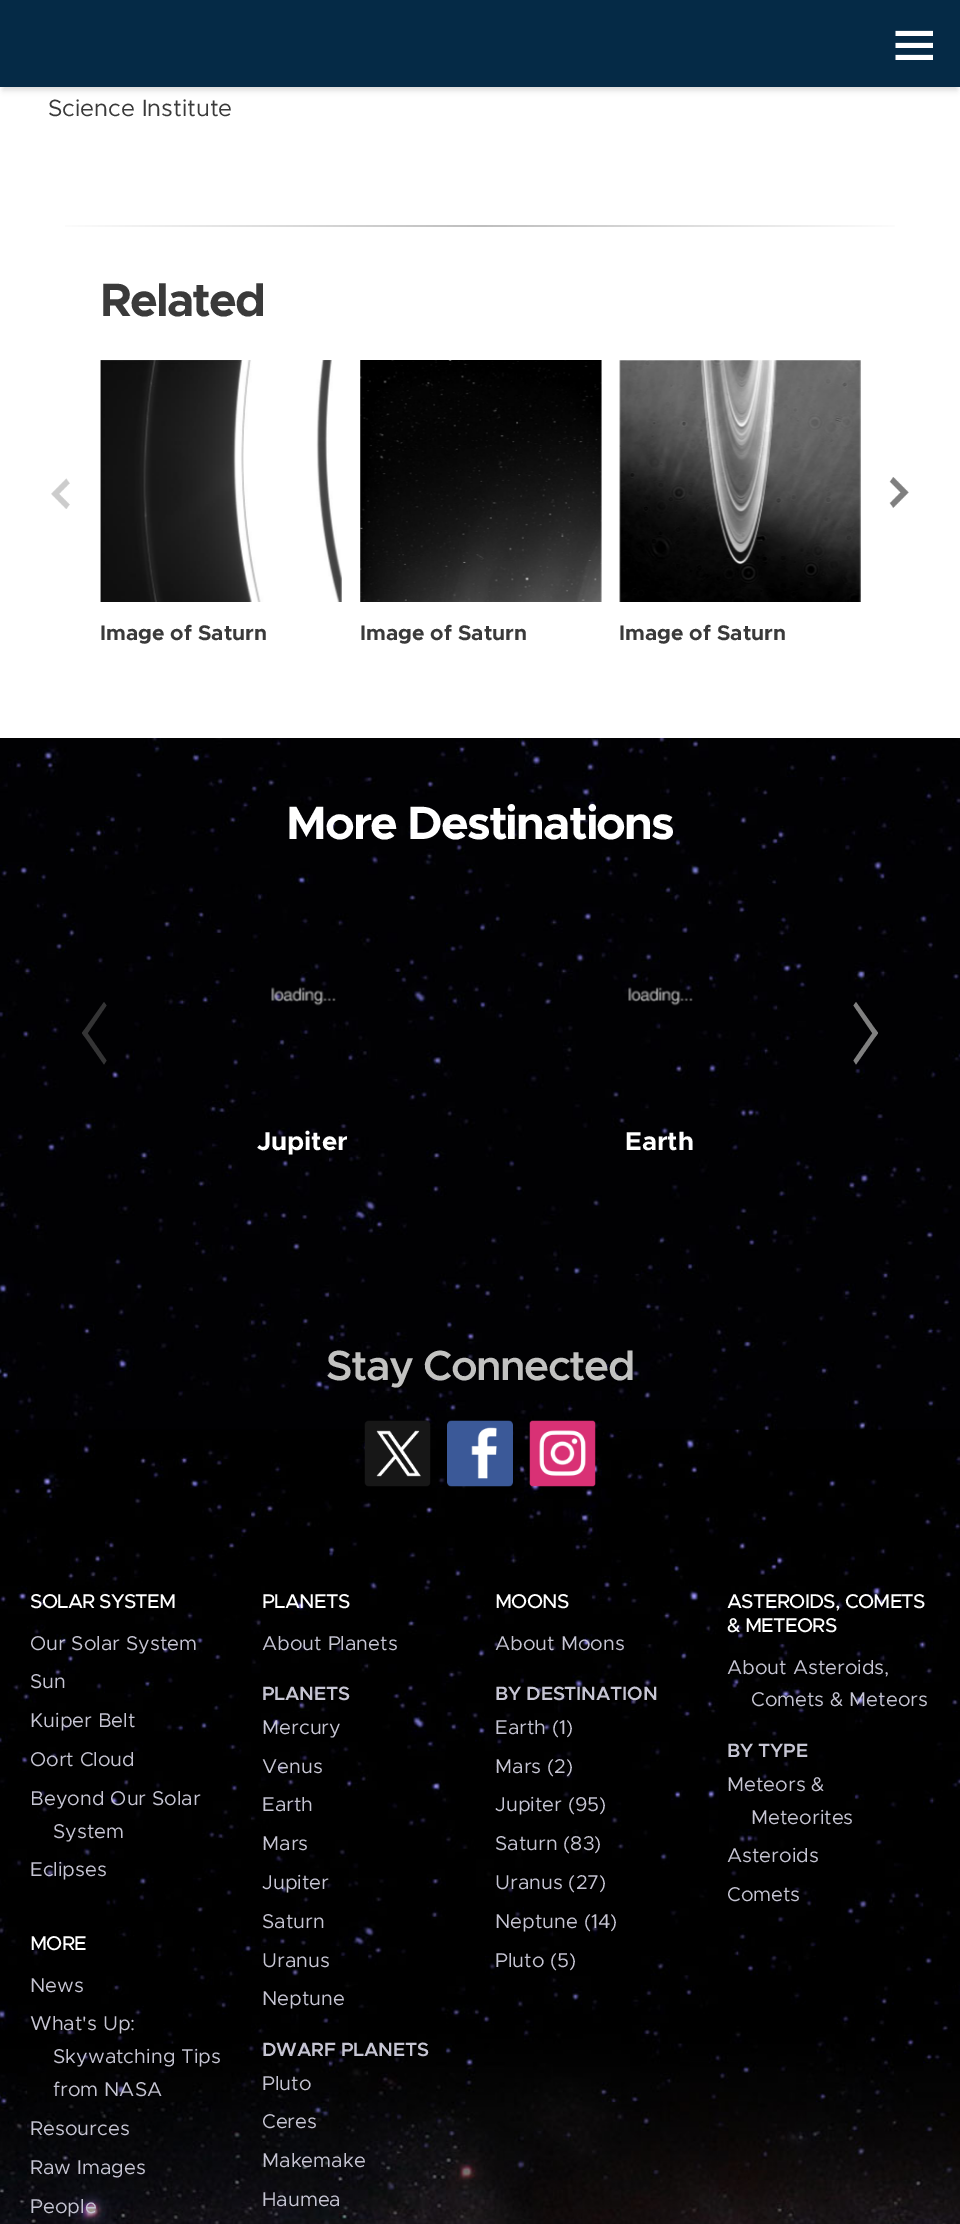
%!PS
<< /PageSize [960 2224] /PageUsesTransparency true >> setpagedevice
/m/moveto load def
/l/rlineto load def
/z/closepath load def
/f/fill load def
/q/gsave load def
/Q_/grestore load def
/C { dup -16 bitshift 255 div exch dup -8 bitshift 255 and 255 div exch 255 and 255 div setrgbcolor } def
/F { [ exch dup neg 0 0 3 -1 roll 0 0 ] selectfont } def
/T { moveto show } def
/R { rectfill } def
/A { dup .setfillconstantalpha .setstrokeconstantalpha } def
/Q { 5 dict begin { /r /h /w /y /x } { exch def } forall
  x r add y moveto x w add y 2 copy h add r arct x w add y h add x 1 index r arct
  x y h add x y r arct x y 2 copy exch w add exch r arct closepath end } def
/S { 12 dict begin { /a /b /q /h /w /y /x } { exch def } forall gsave /was 0 def
  9 -2 -9 { dup b mul 4 div /e exch def 1 sub .425 mul 2.718 exch exp 1 add a .99 .min exch div /now exch def
    1 1 now sub 1 was sub div sub A /was now def
    w h .min e 2 mul add 0 gt { x e sub y e sub w e 2 mul add h e 2 mul add
      q e add b .6 mul add w h .min 2 div e add .min 0 .max Q fill } if } for grestore end } def
/I { 5 dict begin { /h /w /y /x /name } { exch def } forall
  gsave x y translate w h scale
  w h 8 [w 0 0 h 0 0] name (r) file false 3 colorimage grestore end } def
0 .pushpdf14devicefilter
0 2224 translate 1 -1 scale
4 setmiterlimit
16#FFFFFF C
0 0 960 2224 R
16#000000 C
3 9 954 81 0 3 .15 S
16#052A46 C
0 0 960 87 R
(1.rgb) 895 30 38 30 I
/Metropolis-Regular 23.5 F
16#3A3A3A C
(Science Institute) 48 116 T
q 65 225 m 830 0 l 0 2 l -830 0 l z clip newpath
<< /ShadingType 2 /ColorSpace /DeviceRGB /Coords [48 226 912 226] /Extend [true true] /Function << /FunctionType 3 /Domain [0 1] /Functions [<< /FunctionType 2 /Domain [0 1] /C0 [1 1 1] /C1 [.745 .745 .745] /N 1 >> << /FunctionType 2 /Domain [0 1] /C0 [.745 .745 .745] /C1 [1 1 1] /N 1 >>] /Bounds [.5] /Encode [0 1 0 1] >> >> shfill Q_
/Metropolis-Bold 47 F
100 316 m -1.9 0 (Related) ashow
(2.rgb) 51 478 19 31 I
(3.rgb) 889 477 20 31 I
(4.rgb) 100 360 242 242 I
/Metropolis-Bold 21.25 F
(Image of Saturn) 100 640 T
(5.rgb) 360 360 242 242 I
(Image of Saturn) 360 640 T
(6.rgb) 619 360 242 242 I
(Image of Saturn) 619 640 T
(7.rgb) 0 738 960 1486 I
/Metropolis-Bold 47 F
16#FFFFFF C
286 839 m -1.9 0 (More Destinations) ashow
16#343435 C
85 1029.5 m 21.5 31 l -2.5 4 l -22 -31.5 l z f
104 1002 m 2.5 3.5 l -21.5 31.5 l -3 -4 l z f
16#808080 C
856 1002 m 22 31 l -3 4 l -21.5 -31.5 l z f
875 1029.5 m 3 3.5 l -22 31.5 l -2.5 -4 l z f
(8.rgb) 271 987 65 19 I
/Metropolis-Bold 26 F
16#FFFFFF C
(Jupiter) 257 1150 T
(9.rgb) 628 987 65 19 I
(Earth) 625 1150 T
/Metropolis-SemiBold 42.25 F
16#C2C2C1 C
326 1380 m -1.5 0 (Stay Connected) ashow
(10.rgb) 364 1420 67 67 I
(11.rgb) 447 1420 66 67 I
(12.rgb) 529 1420 67 67 I
/Metropolis-Medium 20 F
16#FFFFFF C
30 1608 m -.75 0 (SOLAR SYSTEM) ashow
/Metropolis-Regular 20 F
16#C6C5D3 C
(Our Solar System) 30 1650 T
(Sun) 30 1688 T
(Kuiper Belt) 30 1727 T
(Oort Cloud) 30 1766 T
(Beyond Our Solar) 30 1805 T
(System) 53 1838 T
(Eclipses) 30 1876 T
/Metropolis-Medium 20 F
16#FFFFFF C
262 1608 m -.75 0 (PLANETS) ashow
/Metropolis-Regular 20 F
16#C6C5D3 C
(About Planets) 262 1650 T
/Metropolis-SemiBold 19.25 F
262 1700 m -.25 0 (PLANETS) ashow
/Metropolis-Regular 20 F
(Mercury) 262 1734 T
(Venus) 262 1773 T
(Earth) 262 1811 T
(Mars) 262 1850 T
(Jupiter) 262 1889 T
(Saturn) 262 1928 T
(Uranus) 262 1967 T
(Neptune) 262 2005 T
/Metropolis-SemiBold 19.25 F
262 2056 m -.25 0 (DWARF PLANETS) ashow
/Metropolis-Regular 20 F
(Pluto) 262 2090 T
(Ceres) 262 2128 T
(Makemake) 262 2167 T
(Haumea) 262 2206 T
/Metropolis-Medium 20 F
16#FFFFFF C
495 1608 m -.75 0 (MOONS) ashow
/Metropolis-Regular 20 F
16#C6C5D3 C
(About Moons) 495 1650 T
/Metropolis-SemiBold 19.25 F
495 1700 m -.25 0 (BY DESTINATION) ashow
/Metropolis-Regular 20 F
(Earth \(1\)) 495 1734 T
(Mars \(2\)) 495 1773 T
(Jupiter \(95\)) 495 1811 T
(Saturn \(83\)) 495 1850 T
(Uranus \(27\)) 495 1889 T
(Neptune \(14\)) 495 1928 T
(Pluto \(5\)) 495 1967 T
/Metropolis-Medium 20 F
16#FFFFFF C
727 1608 m -.75 0 (ASTEROIDS, COMETS) ashow
727 1632 m -.75 0 (& METEORS) ashow
/Metropolis-Regular 20 F
16#C6C5D3 C
(About Asteroids,) 727 1674 T
(Comets & Meteors) 751 1706 T
/Metropolis-SemiBold 19.25 F
727 1757 m -.25 0 (BY TYPE) ashow
/Metropolis-Regular 20 F
(Meteors &) 727 1791 T
(Meteorites) 751 1824 T
(Asteroids) 727 1862 T
(Comets) 727 1901 T
/Metropolis-Medium 20 F
16#FFFFFF C
30 1950 m -.75 0 (MORE) ashow
/Metropolis-Regular 20 F
16#C6C5D3 C
(News) 30 1992 T
(What's Up:) 30 2030 T
(Skywatching Tips) 53 2063 T
(from NASA) 53 2096 T
(Resources) 30 2135 T
(Raw Images) 30 2174 T
(People) 30 2213 T
.poppdf14devicefilter showpage
